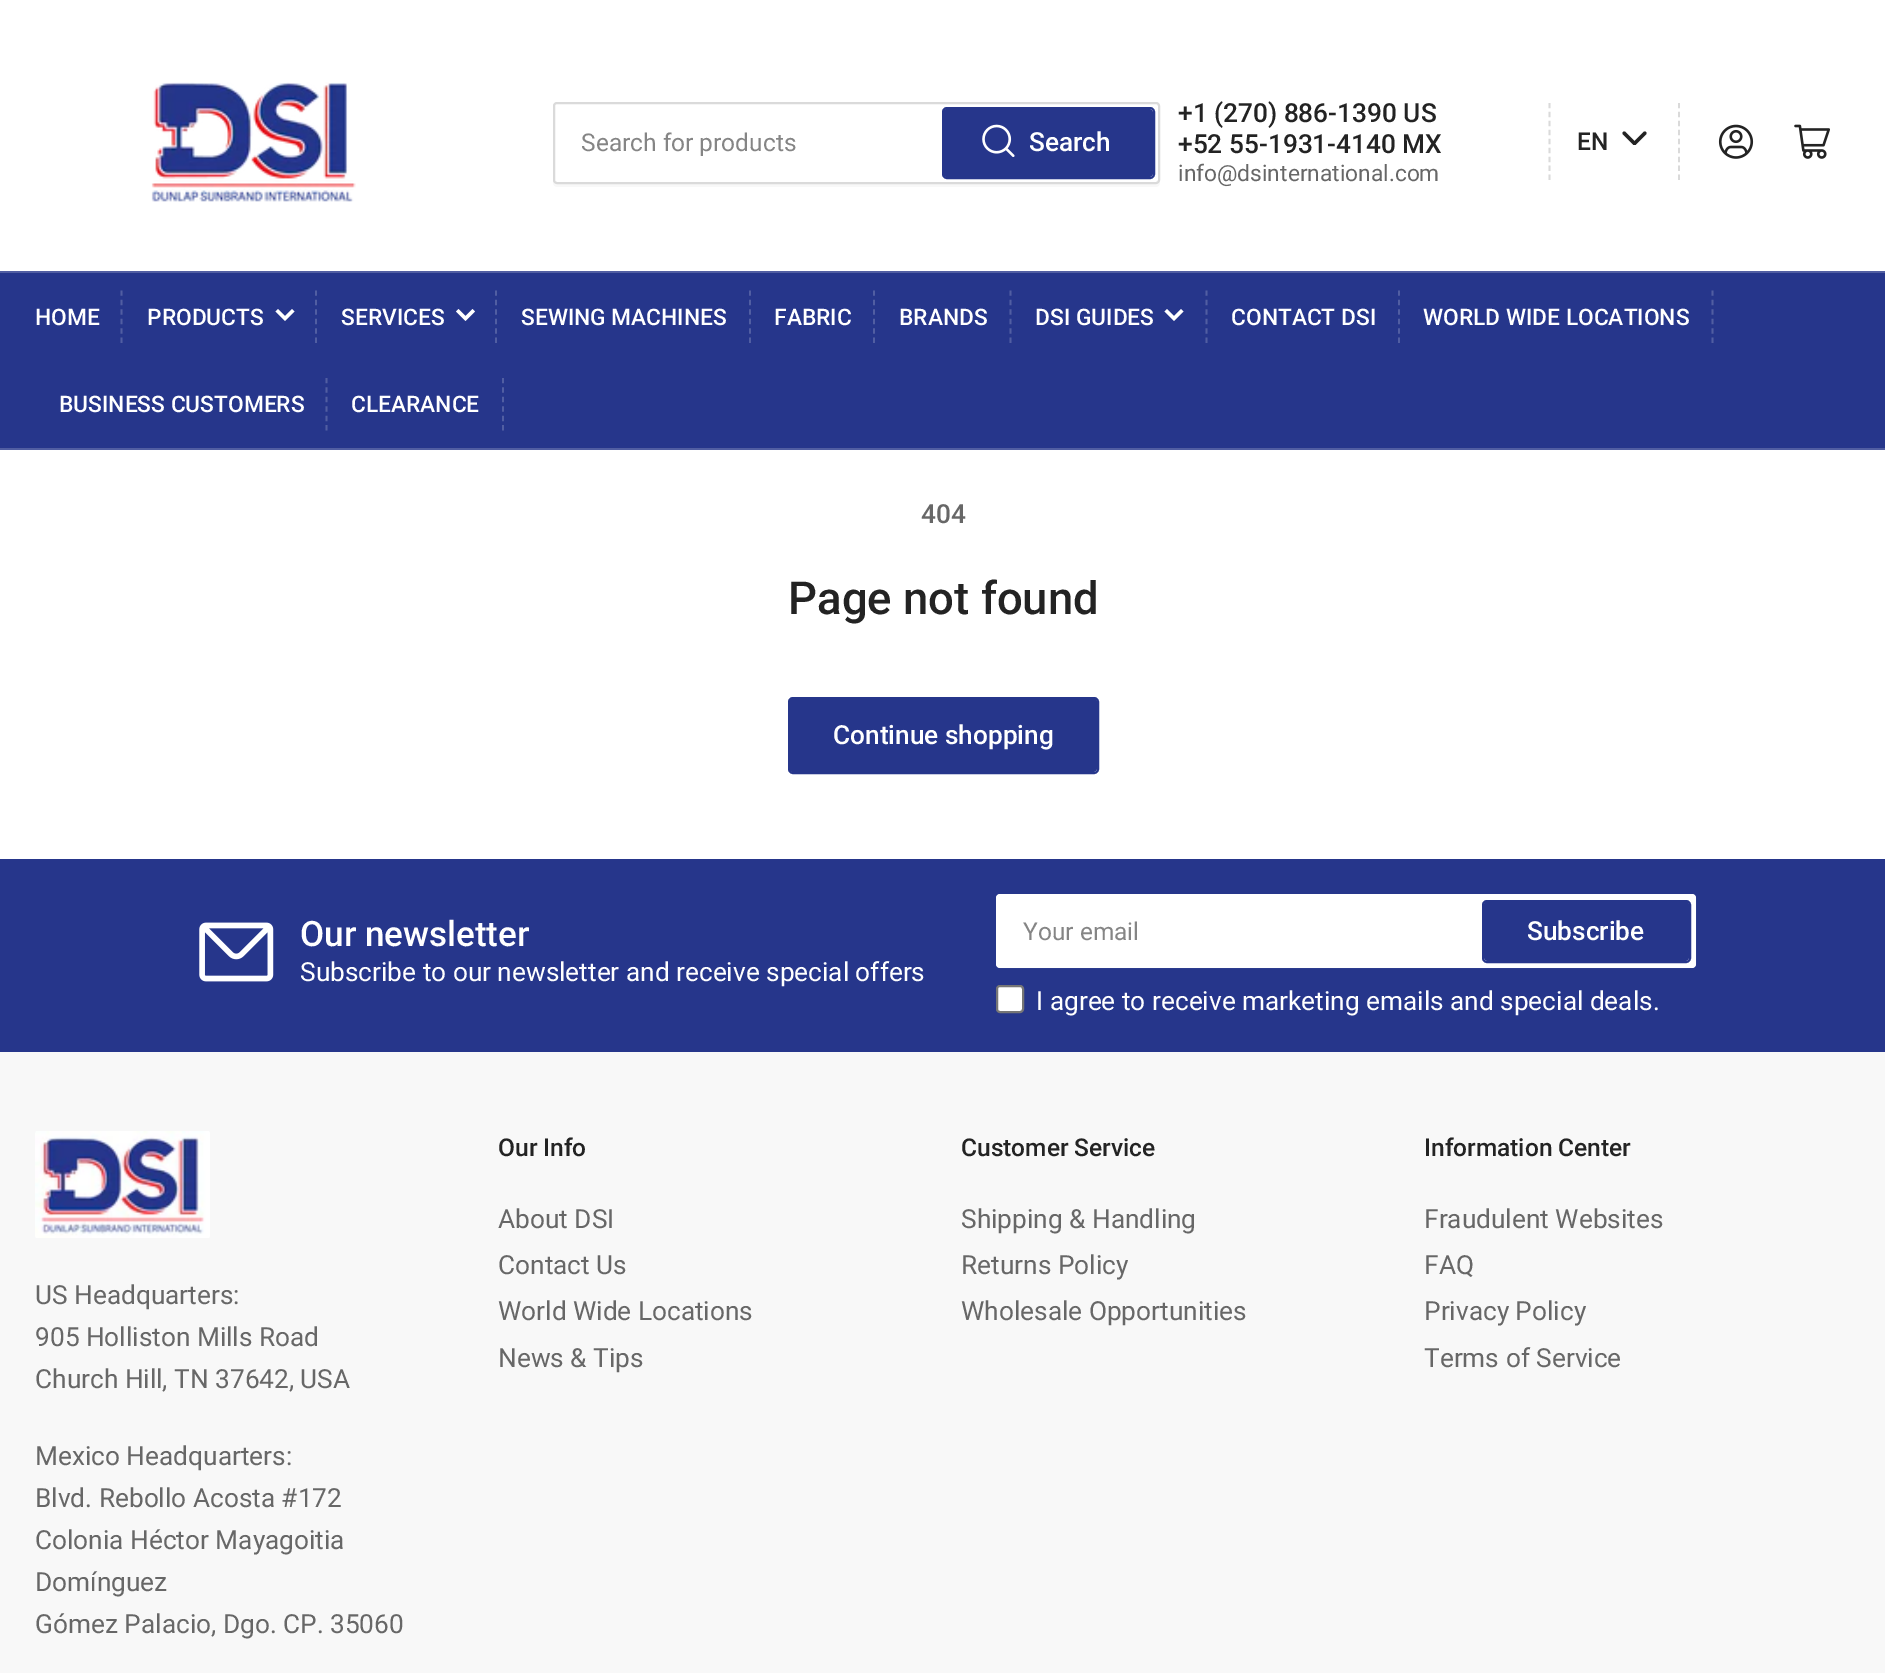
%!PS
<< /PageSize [1885 1673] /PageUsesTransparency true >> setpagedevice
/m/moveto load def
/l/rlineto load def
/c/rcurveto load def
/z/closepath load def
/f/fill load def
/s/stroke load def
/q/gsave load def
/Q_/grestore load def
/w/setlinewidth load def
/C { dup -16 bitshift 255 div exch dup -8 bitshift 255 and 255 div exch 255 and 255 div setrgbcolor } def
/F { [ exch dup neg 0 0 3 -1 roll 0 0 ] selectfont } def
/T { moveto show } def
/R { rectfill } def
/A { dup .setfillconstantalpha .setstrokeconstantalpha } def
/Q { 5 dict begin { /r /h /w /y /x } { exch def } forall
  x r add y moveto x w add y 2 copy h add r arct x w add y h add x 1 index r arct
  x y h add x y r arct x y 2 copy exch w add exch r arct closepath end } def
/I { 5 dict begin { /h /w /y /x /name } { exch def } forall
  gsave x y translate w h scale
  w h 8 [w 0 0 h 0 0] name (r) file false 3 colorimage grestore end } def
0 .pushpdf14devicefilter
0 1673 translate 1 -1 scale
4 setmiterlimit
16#FFFFFF C
0 0 1885 1673 R
(1.rgb) 151 82 205 120 I
16#F8F8F8 C
553 180 m 0 3 l 0 2 2 4 4 4 c 599 0 l 2 0 4 -2 4 -4 c 0 -1 l -1 1 -2 2 -3 2 c -601 0 l -1 0 -3 -2 -3 -4 c z f
16#DADADA C
2 w
554 103 605 80 3 Q s
/Roboto-Regular 24.5 F
16#858585 C
(Search for products) 581 151 T
16#26368B C
943 108 211 70 4 Q s
943 109 210 68 4 Q f
(2.rgb) 982 124 33 33 I
/Roboto-Medium 26.25 F
16#FFFFFF C
(Search) 1029 151 T
16#232323 C
(+1 \(270\) 886-1390 US) 1178 122 T
(+52 55-1931-4140 MX) 1178 153 T
/Roboto-Regular 22.75 F
16#676767 C
(info@dsinternational.com) 1178 181 T
16#DADADA C
1.8 w
[5.25 3.71] 0 setdash
1679 103 m 0 77 l s
1549.5 103 m 0 77 l s
/Roboto-Medium 24.5 F
16#232323 C
(EN) 1577 150 T
1625.5 132 m 10 10 l .5 .5 .5 2 0 2.5 c -.5 .5 -2 .5 -2.5 0 c -10 -10 l -.5 -.5 -.5 -2 0 -2.5 c .5 -.5 2 -.5 2.5 0 c z f
1633.5 142 m 10 -10 l .5 -.5 2 -.5 2.5 0 c .5 .5 .5 2 0 2.5 c -10 10 l -.5 .5 -2 .5 -2.5 0 c -.5 -.5 -.5 -2 0 -2.5 c z f
(3.rgb) 1718 124 36 35 I
(4.rgb) 1794 124 36 35 I
16#26368B C
0 273 1885 175 R
16#515EA2 C
0 271 1885 2 R
0 448 1885 2 R
/Roboto-Medium 22.75 F
16#FFFFFF C
(HOME) 35 325 T
16#515EA2 C
[5.25 4.2] 0 setdash
121.5 290.5 m 0 52.5 l s
16#FFFFFF C
(PRODUCTS) 147 325 T
3.5 w
2 setlinecap
[] 0 setdash
292 311.5 m -7 7 l -7 -7 l s
16#515EA2 C
1.8 w
0 setlinecap
[5.25 4.2] 0 setdash
316 290.5 m 0 52.5 l s
16#FFFFFF C
(SERVICES) 341 325 T
3.5 w
2 setlinecap
[] 0 setdash
472.5 311.5 m -7 7 l -7 -7 l s
16#515EA2 C
1.8 w
0 setlinecap
[5.25 4.2] 0 setdash
496 290.5 m 0 52.5 l s
16#FFFFFF C
(SEWING MACHINES) 521 325 T
16#515EA2 C
750 290.5 m 0 52.5 l s
16#FFFFFF C
(FABRIC) 774 325 T
16#515EA2 C
874 290.5 m 0 52.5 l s
16#FFFFFF C
(BRANDS) 899 325 T
16#515EA2 C
1010.5 290.5 m 0 52.5 l s
16#FFFFFF C
(DSI GUIDES) 1035 325 T
3.5 w
2 setlinecap
[] 0 setdash
1181 311.5 m -7 7 l -7 -7 l s
16#515EA2 C
1.8 w
0 setlinecap
[5.25 4.2] 0 setdash
1206.5 290.5 m 0 52.5 l s
16#FFFFFF C
(CONTACT DSI) 1231 325 T
16#515EA2 C
1399 290.5 m 0 52.5 l s
16#FFFFFF C
(WORLD WIDE LOCATIONS) 1423 325 T
16#515EA2 C
1712.5 290.5 m 0 52.5 l s
16#FFFFFF C
(BUSINESS CUSTOMERS) 59 412 T
16#515EA2 C
326.5 378 m 0 52.5 l s
16#FFFFFF C
(CLEARANCE) 351 412 T
16#515EA2 C
503 378 m 0 52.5 l s
/Roboto-Medium 26.25 F
16#676767 C
(404) 921 523 T
/Roboto-Medium 45.5 F
16#232323 C
(Page not found) 788 614 T
16#26368B C
2 w
[] 0 setdash
789 698 309 75 4 Q s
789 698 308 74 4 Q f
/Roboto-Medium 26.25 F
16#FFFFFF C
(Continue shopping) 833 744 T
16#26368B C
0 859 1885 193 R
(5.rgb) 199 922 75 60 I
/Roboto-Medium 35 F
16#FFFFFF C
(Our newsletter) 300 946 T
/Roboto-Regular 26.25 F
(Subscribe to our newsletter and receive special offers) 300 981 T
996 894 700 74 4 Q f
0.1 A
997 895 698 72 3 Q s
/Roboto-Regular 24.5 F
1 A
16#858585 C
(Your email) 1023 940 T
16#26368B C
1483 901 207 61 4 Q s
1484 901 205 60 4 Q f
/Roboto-Medium 26.25 F
16#FFFFFF C
(Subscribe) 1527 940 T
997 986 26 26 3 Q q f Q_
16#767676 C
s
/Roboto-Regular 26.25 F
16#FFFFFF C
(I agree to receive marketing emails and special deals.) 1036 1010 T
16#F8F8F8 C
0 1052 1885 621 R
/Roboto-Medium 24.5 F
16#232323 C
(Our Info) 498 1156 T
/Roboto-Regular 26.25 F
16#676767 C
(About DSI) 498 1228 T
(Contact Us) 498 1274 T
(World Wide Locations) 498 1320 T
(News & Tips) 498 1367 T
/Roboto-Medium 24.5 F
16#232323 C
(Customer Service) 961 1156 T
/Roboto-Regular 26.25 F
16#676767 C
(Shipping & Handling) 961 1228 T
(Returns Policy) 961 1274 T
(Wholesale Opportunities) 961 1320 T
/Roboto-Medium 24.5 F
16#232323 C
(Information Center) 1424 1156 T
/Roboto-Regular 26.25 F
16#676767 C
(Fraudulent Websites) 1424 1228 T
(FAQ) 1424 1274 T
(Privacy Policy) 1424 1320 T
(Terms of Service) 1424 1367 T
(6.rgb) 35 1131 175 107 I
(US Headquarters:) 35 1304 T
(905 Holliston Mills Road) 35 1346 T
(Church Hill, TN 37642, USA) 35 1388 T
(Mexico Headquarters:) 35 1465 T
(Blvd. Rebollo Acosta #172) 35 1507 T
(Colonia Héctor Mayagoitia) 35 1549 T
(Domínguez) 35 1591 T
(Gómez Palacio, Dgo. CP. 35060) 35 1633 T
.poppdf14devicefilter showpage
